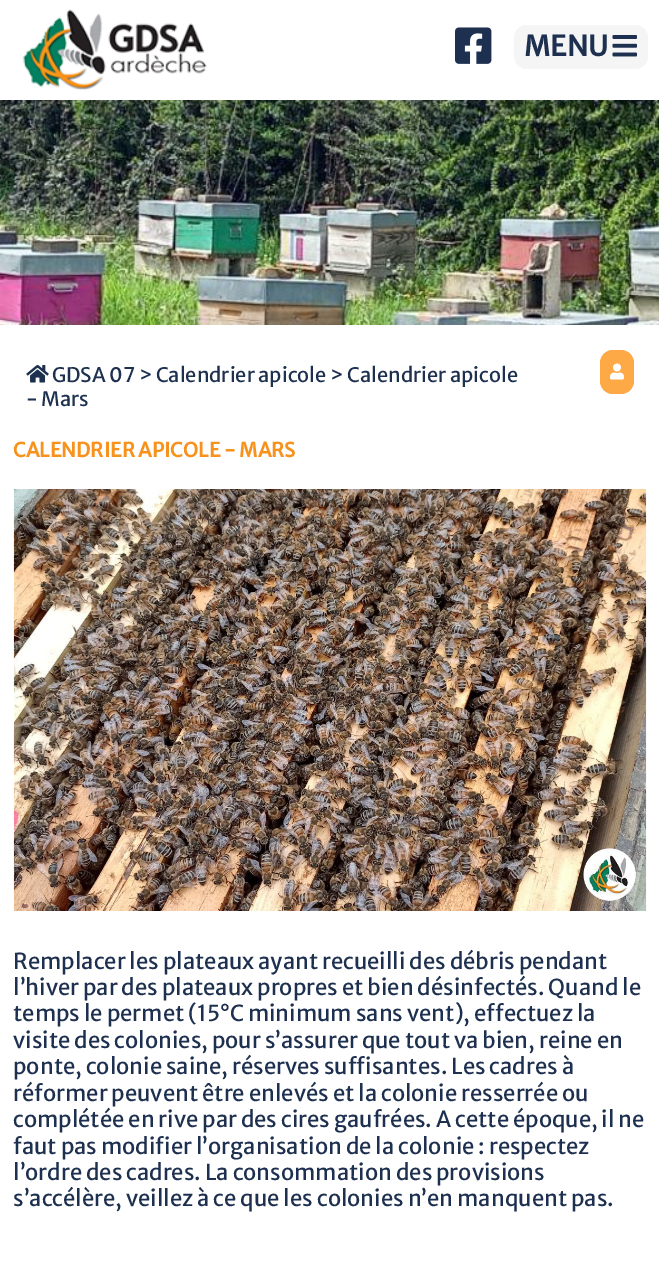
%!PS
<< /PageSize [659 1268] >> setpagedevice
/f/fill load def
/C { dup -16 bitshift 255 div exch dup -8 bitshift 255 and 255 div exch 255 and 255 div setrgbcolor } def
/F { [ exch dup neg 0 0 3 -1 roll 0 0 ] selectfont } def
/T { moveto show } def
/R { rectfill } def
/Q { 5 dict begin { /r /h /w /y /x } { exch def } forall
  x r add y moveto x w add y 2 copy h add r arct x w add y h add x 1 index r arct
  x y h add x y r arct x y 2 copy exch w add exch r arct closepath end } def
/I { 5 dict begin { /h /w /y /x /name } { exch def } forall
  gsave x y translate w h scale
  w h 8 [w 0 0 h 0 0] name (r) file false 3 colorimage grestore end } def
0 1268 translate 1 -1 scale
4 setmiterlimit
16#FFFFFF C
0 0 659 1268 R
(1.rgb) 22 9 185 82 I
(2.rgb) 455 27 37 37 I
16#F5F5F5 C
514 25 134 44 13 Q f
/MerriweatherSans-Bold 28 F
16#1E3050 C
(MENU) 524 56 T
(3.rgb) 612 35 25 22 I
(4.rgb) 0 100 659 225 I
(5.rgb) 26 365 23 18 I
/MerriweatherSans-Regular 20 F
(GDSA 07 > Calendrier apicole > Calendrier apicole) 52 382 T
(- Mars) 26 406 T
16#FDA946 C
600 350 34 44 13 Q f
(6.rgb) 610 363 14 17 I
/MerriweatherSans-Bold 19.75 F
16#F7931D C
(CALENDRIER APICOLE - MARS) 13 457 T
(7.rgb) 13 489 634 422 I
/MerriweatherSans-Regular 22 F
16#1E3050 C
(Remplacer les plateaux ayant recueilli des débris pendant) 13 969 T
(l’hiver par des plateaux propres et bien désinfectés. Quand le) 13 995 T
(temps le permet \(15°C minimum sans vent\), effectuez la) 13 1021 T
(visite des colonies, pour s’assurer que tout va bien, reine en) 13 1048 T
(ponte, colonie saine, réserves suffisantes. Les cadres à) 13 1074 T
(réformer peuvent être enlevés et la colonie resserrée ou) 13 1101 T
(complétée en rive par des cires gaufrées. A cette époque, il ne) 13 1127 T
(faut pas modifier l’organisation de la colonie : respectez) 13 1154 T
(l’ordre des cadres. La consommation des provisions) 13 1180 T
(s’accélère, veillez à ce que les colonies n’en manquent pas.) 13 1206 T
showpage
